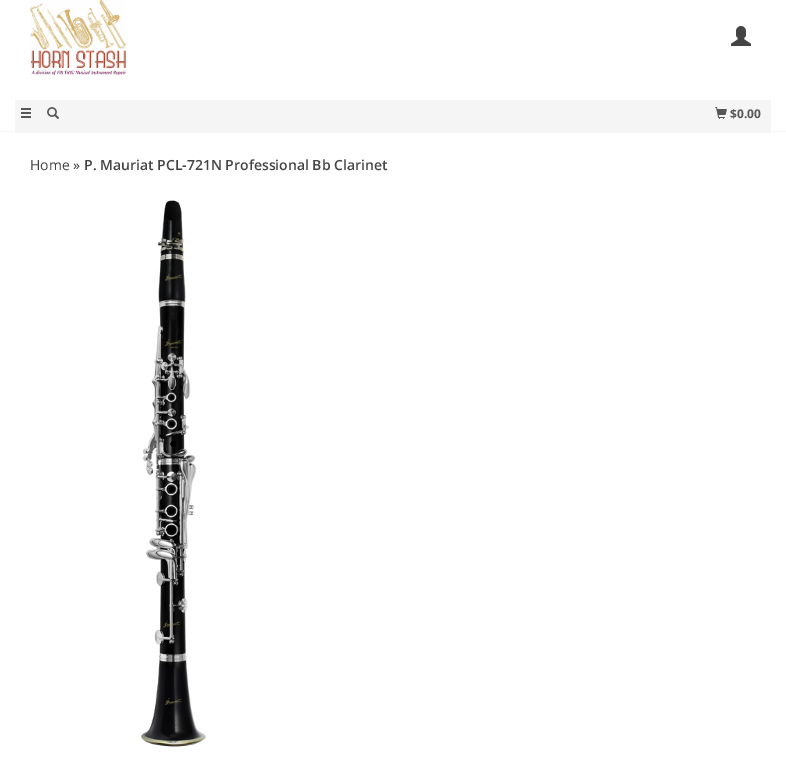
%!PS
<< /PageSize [786 767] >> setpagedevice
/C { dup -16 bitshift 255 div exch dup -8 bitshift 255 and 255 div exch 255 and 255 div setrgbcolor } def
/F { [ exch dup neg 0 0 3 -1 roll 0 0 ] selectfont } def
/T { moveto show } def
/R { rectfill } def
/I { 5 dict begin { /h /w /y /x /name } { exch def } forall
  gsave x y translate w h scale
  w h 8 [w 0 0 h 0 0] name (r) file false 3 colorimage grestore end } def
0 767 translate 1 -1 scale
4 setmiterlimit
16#FFFFFF C
0 0 786 767 R
16#F7F7F7 C
0 131 786 1 R
(1.rgb) 30 0 96 75 I
(2.rgb) 731 26 20 20 I
16#F5F5F5 C
15 100 756 33 R
(3.rgb) 21 108 10 10 I
(4.rgb) 47 107 12 12 I
(5.rgb) 715 107 12 12 I
/OpenSans-Bold 12 F
16#595656 C
($0.00) 730 118 T
/OpenSans-Regular 14 F
16#444444 C
(Home) 30 170 T
16#333333 C
(») 73 170 T
/OpenSans-SemiBold 14 F
16#444444 C
(P. Mauriat PCL-721N Professional Bb Clarinet) 84 170 T
(6.rgb) 141 200 65 547 I
showpage
